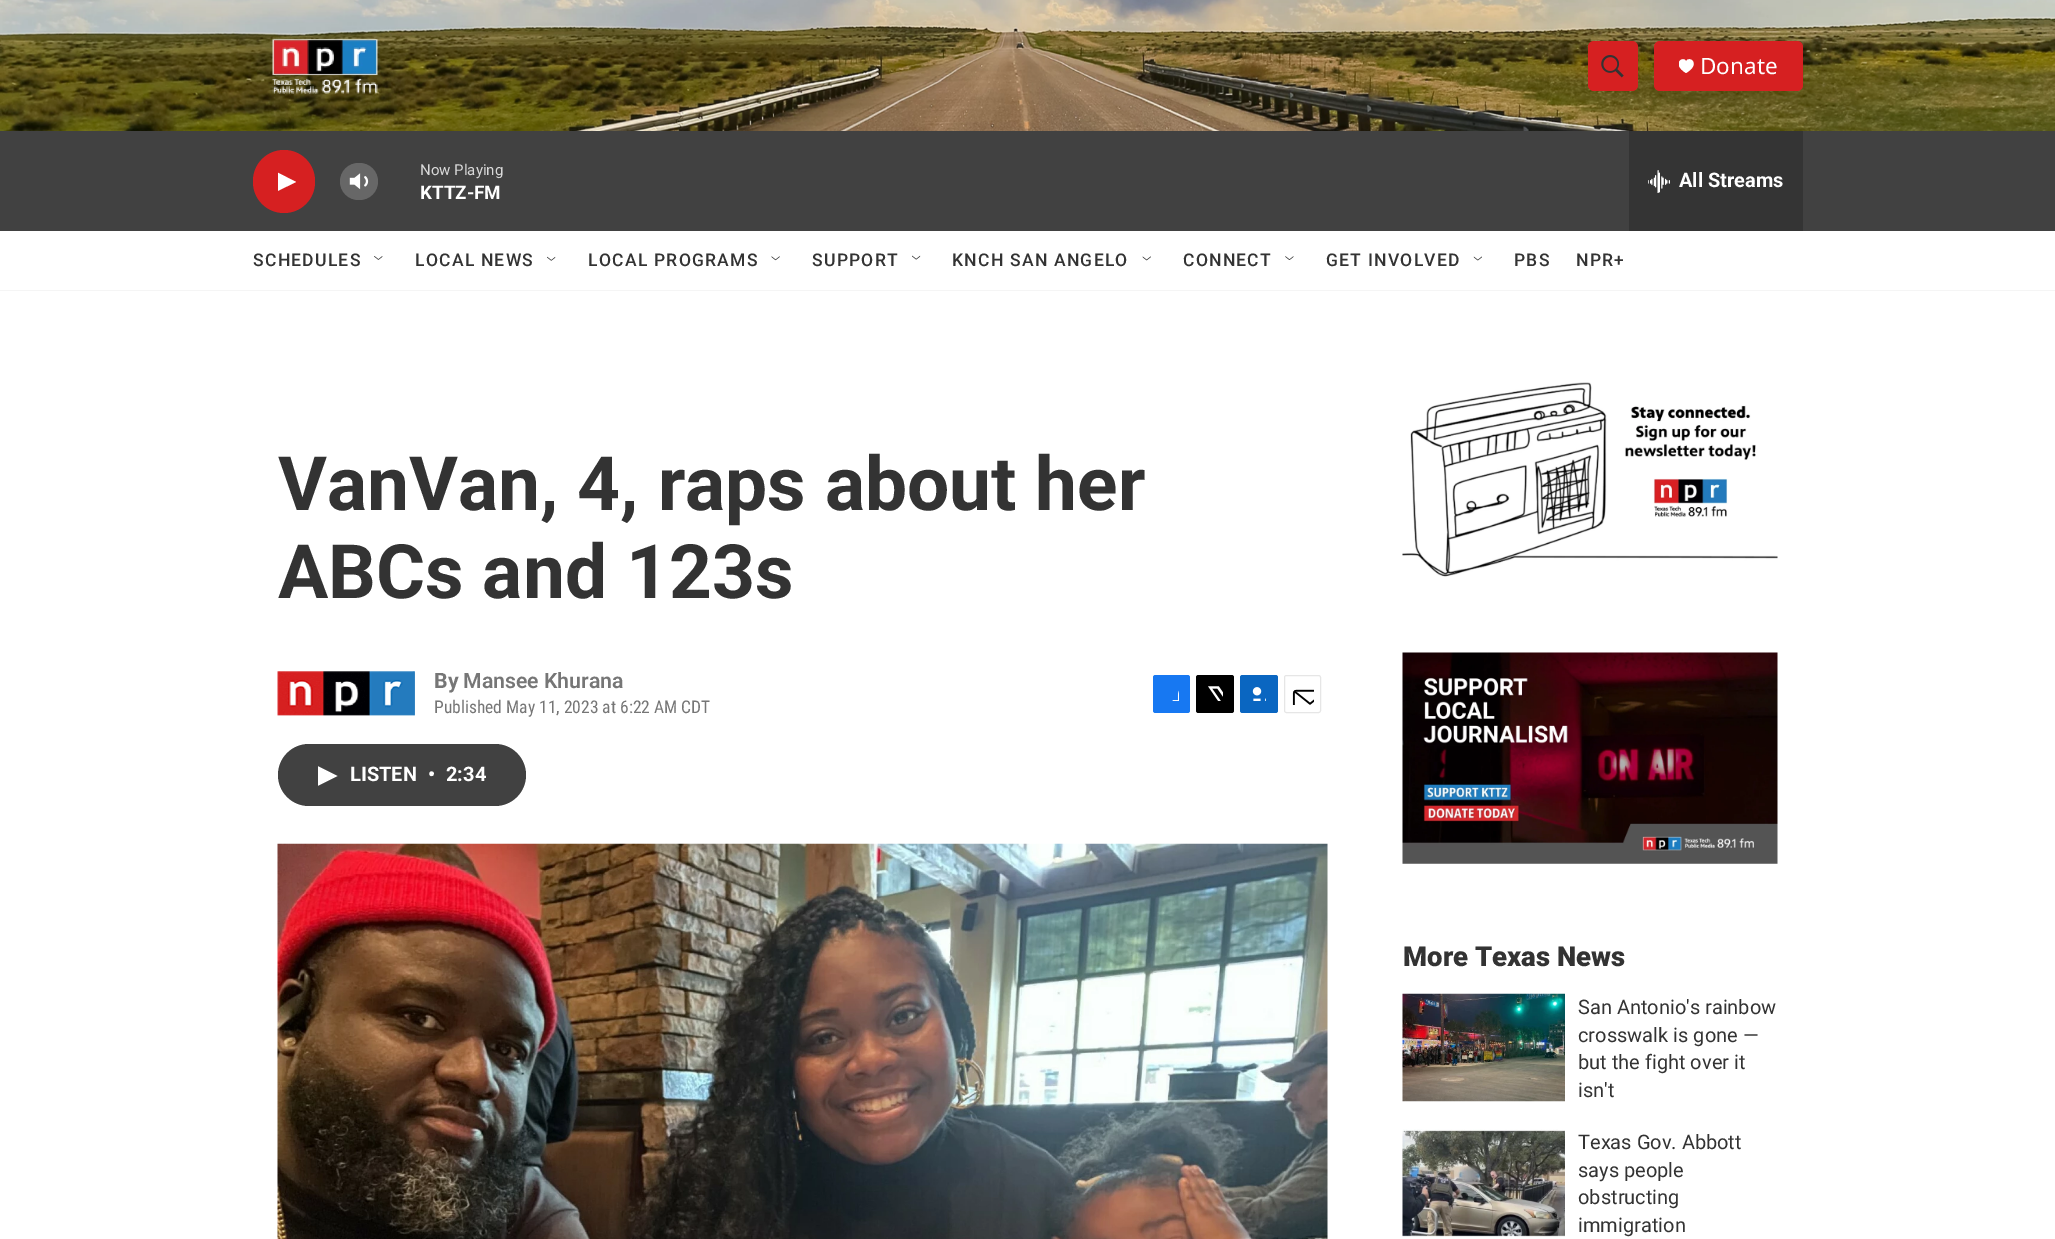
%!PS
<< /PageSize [2055 1239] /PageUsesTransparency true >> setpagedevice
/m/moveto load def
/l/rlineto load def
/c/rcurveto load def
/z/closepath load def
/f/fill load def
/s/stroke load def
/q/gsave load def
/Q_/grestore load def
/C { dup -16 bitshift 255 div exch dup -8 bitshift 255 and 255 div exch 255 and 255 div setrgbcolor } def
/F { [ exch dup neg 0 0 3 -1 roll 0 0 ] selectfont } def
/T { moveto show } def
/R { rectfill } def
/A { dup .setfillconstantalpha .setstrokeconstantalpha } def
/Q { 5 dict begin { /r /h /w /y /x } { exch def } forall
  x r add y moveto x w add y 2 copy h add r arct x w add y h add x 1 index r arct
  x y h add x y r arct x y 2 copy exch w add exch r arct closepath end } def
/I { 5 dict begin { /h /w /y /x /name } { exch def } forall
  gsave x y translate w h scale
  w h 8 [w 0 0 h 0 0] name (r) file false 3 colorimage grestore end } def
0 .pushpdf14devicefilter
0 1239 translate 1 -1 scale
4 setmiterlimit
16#FFFFFF C
0 0 2055 1239 R
16#F5F5F5 C
0 290 2055 1 R
(1.rgb) 0 0 2055 131 I
(2.rgb) 272 38 106 56 I
16#D62021 C
1588 41 50 50 6 Q f
(3.rgb) 1601 55 23 23 I
1654 41 149 50 6 Q f
q
1679 59 15 15 rectclip
16#FFFFFF C
1686 61.5 m -2 -6.5 -15.5 2 0 11.5 c 16 -9.5 2.5 -18 0 -11.5 c z f
Q_
/NotoSans-Regular 22.5 F
16#FFFFFF C
(Donate) 1700 74 T
16#414141 C
0 131 2055 100 R
16#D62021 C
253 150 62 63 31 Q f
q
278 170 18 24 rectclip
16#FFFFFF C
277.5 172.5 m 18.5 9.5 l -18.5 9 l z f
Q_
(4.rgb) 349 173 20 17 I
0.2 A
16#FFFFFF C
340 163 38 37 18.5 Q f
/Roboto-Regular 15 F
1 A
16#D9D9D9 C
(Now Playing) 420 175 T
/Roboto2-Bold 18.75 F
16#FFFFFF C
(KTTZ-FM) 420 199 T
16#343434 C
1629 131 174 100 R
(5.rgb) 1648 170 22 23 I
/Roboto2-Bold 20 F
16#FFFFFF C
(All Streams) 1679 187 T
/Roboto-Medium 17.5 F
16#333333 C
253 266 m 1.25 0 (SCHEDULES) ashow
(6.rgb) 374 256 9 4 I
415 266 m 1.25 0 (LOCAL NEWS) ashow
(7.rgb) 547 256 9 5 I
588 266 m 1.25 0 (LOCAL PROGRAMS) ashow
(8.rgb) 771 256 9 5 I
812 266 m 1.25 0 (SUPPORT) ashow
(9.rgb) 912 255 9 5 I
952 266 m 1.25 0 (KNCH SAN ANGELO) ashow
(10.rgb) 1142 256 9 5 I
1183 266 m 1.25 0 (CONNECT) ashow
(11.rgb) 1285 256 9 4 I
1326 266 m 1.25 0 (GET INVOLVED) ashow
(12.rgb) 1473 256 9 5 I
1514 266 m 1.25 0 (PBS) ashow
1576 266 m 1.25 0 (NPR+) ashow
/Roboto-Bold 75 F
(VanVan, 4, raps about her) 278 510 T
(ABCs and 123s) 278 598 T
(13.rgb) 277 671 138 45 I
/Roboto-Bold 21.25 F
16#767676 C
(By) 434 688 T
/Roboto-SemiBold 21.25 F
(Mansee Khurana) 463 688 T
/RobotoCondensed-Regular 17.5 F
(Published May 11, 2023 at 6:22 AM CDT) 434 713 T
16#1778F2 C
1153 675 37 38 2.5 Q f
(14.rgb) 1172 690 7 11 I
16#000000 C
1196 675 38 38 2.5 Q f
(15.rgb) 1208 686 15 15 I
16#0A66C1 C
1240 675 38 38 2.5 Q f
(16.rgb) 1252 687 14 14 I
16#E6E6E6 C
1284.5 675.5 36 37 2 Q s
(17.rgb) 1292 689 22 16 I
16#414141 C
278 744 248 62 31 Q f
q
318 766 20 20 rectclip
16#FFFFFF C
317.5 766 m 20 10 l -20 10 l z f
Q_
/Roboto2-Bold 20 F
16#FFFFFF C
(LISTEN) 350 781 T
(•) 428 781 T
(2:34) 446 781 T
(18.rgb) 277 843 1051 396 I
(19.rgb) 1402 382 376 195 I
(20.rgb) 1402 652 376 212 I
/Roboto-Black 27.5 F
16#333333 C
(More Texas News) 1403 966 T
(21.rgb) 1402 993 163 109 I
/Roboto-Regular 20 F
(San Antonio's rainbow) 1578 1014 T
(crosswalk is gone —) 1578 1042 T
(but the fight over it) 1578 1069 T
(isn't) 1578 1097 T
(22.rgb) 1402 1129 163 108 I
(Texas Gov. Abbott) 1578 1149 T
(says people) 1578 1177 T
(obstructing) 1578 1204 T
(immigration) 1578 1232 T
.poppdf14devicefilter showpage
